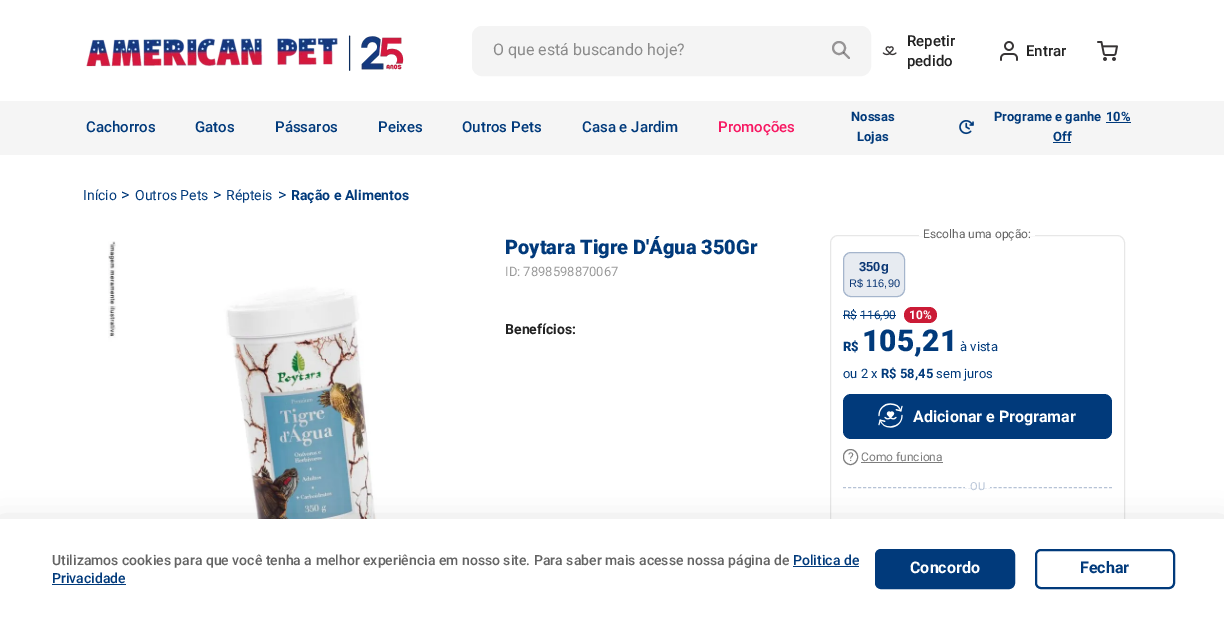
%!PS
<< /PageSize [1224 619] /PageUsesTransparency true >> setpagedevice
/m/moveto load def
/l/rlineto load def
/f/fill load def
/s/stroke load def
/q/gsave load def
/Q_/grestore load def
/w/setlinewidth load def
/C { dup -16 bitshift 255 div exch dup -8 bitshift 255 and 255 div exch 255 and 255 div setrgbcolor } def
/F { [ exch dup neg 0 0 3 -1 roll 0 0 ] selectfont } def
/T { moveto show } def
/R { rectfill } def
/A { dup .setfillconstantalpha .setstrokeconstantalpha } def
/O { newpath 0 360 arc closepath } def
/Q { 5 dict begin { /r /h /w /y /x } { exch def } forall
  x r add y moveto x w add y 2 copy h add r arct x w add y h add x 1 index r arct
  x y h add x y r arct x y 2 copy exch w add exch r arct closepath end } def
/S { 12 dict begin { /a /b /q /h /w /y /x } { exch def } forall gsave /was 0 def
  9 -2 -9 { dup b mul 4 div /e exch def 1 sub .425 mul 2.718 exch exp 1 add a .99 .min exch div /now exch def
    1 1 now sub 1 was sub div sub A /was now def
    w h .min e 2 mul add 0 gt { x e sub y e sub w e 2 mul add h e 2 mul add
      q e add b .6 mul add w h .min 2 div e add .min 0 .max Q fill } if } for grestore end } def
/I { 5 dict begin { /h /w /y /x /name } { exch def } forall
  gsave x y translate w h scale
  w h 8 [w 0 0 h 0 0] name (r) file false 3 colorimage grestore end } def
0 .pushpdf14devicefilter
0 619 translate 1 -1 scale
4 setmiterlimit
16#FFFFFF C
0 0 1224 619 R
(1.rgb) 86 35 318 36 I
16#F4F4F4 C
472.5 26.5 398 49 9.5 Q q f Q_
s
/Roboto-Regular 16 F
16#8B8B8B C
(O que está buscando hoje?) 493 55 T
16#969495 C
2 w
839 48 6 O s
0.5 A
16#373435 C
1 setlinecap
844 53 m 5 5 l s
/Roboto-Medium 15 F
1 A
16#222222 C
(Repetir) 907 46 T
(2.rgb) 882 46 15 10 I
(pedido) 907 66 T
(3.rgb) 1000 41 18 20 I
(Entrar) 1026 56 T
(4.rgb) 1097 41 21 20 I
16#F5F5F5 C
0 101 1224 54 R
16#013A7B C
(Cachorros) 86 132 T
(Gatos) 195 132 T
(Pássaros) 275 132 T
(Peixes) 378 132 T
(Outros Pets) 462 132 T
(Casa e Jardim) 582 132 T
16#F71963 C
(Promoções) 718 132 T
/Roboto-Bold 13 F
16#013A7B C
(Nossas) 851 121 T
(Lojas) 857 141 T
(5.rgb) 959 120 15 15 I
(Programe e ganhe) 994 121 T
(10%) 1106 121 T
1106 122 25 1 R
(Off) 1053 141 T
1053 142 18 1 R
/Roboto-Regular 14 F
(Início) 83 200 T
/Roboto-Regular 16 F
(>) 121 200 T
/Roboto-Regular 14 F
(Outros Pets) 135 200 T
/Roboto-Regular 16 F
(>) 213 200 T
/Roboto-Regular 14 F
(Répteis) 226 200 T
/Roboto-Regular 16 F
(>) 278 200 T
/Roboto-Bold 14 F
(Ração e Alimentos) 291 200 T
(6.rgb) 108 241 269 278 I
/Roboto-Black 20 F
(Poytara Tigre D'Água 350Gr) 505 254 T
/Roboto-Regular 13 F
16#9B9B9B C
(ID: 7898598870067) 505 276 T
/Roboto-Bold 14 F
16#222222 C
(Benefícios:) 505 334 T
16#E7E7E7 C
1 w
0 setlinecap
830.5 235.5 294 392 7.5 Q s
16#FFFFFF C
919 235 116 1 R
/Roboto-Regular 12 F
16#646464 C
(Escolha uma opção:) 923 238 T
16#E7EBF1 C
843 252 62 45 8 Q f
0.3 A
16#0B3775 C
843.5 252.5 61 44 7.5 Q s
/LiberationSans-Bold 13 F
1 A
(350g) 859 271 T
/LiberationSans-Regular 11 F
(R$ 116,90) 849 287 T
/Roboto-Regular 12 F
16#013A7B C
(R$ 116,90) 843 319 T
843 315 14 1 R
860 315 36 1 R
16#CB1B36 C
904 307 33 16 8 Q f
/Roboto-Bold 12 F
16#FFFFFF C
(10%) 909 319 T
/Roboto-Black 13 F
16#013A7B C
(R$) 843 351 T
/Roboto-Black 30 F
(105,21) 862 351 T
/Roboto-Regular 13 F
(à vista) 960 351 T
(ou 2 x) 843 378 T
/Roboto-Bold 13 F
(R$ 58,45) 881 378 T
/Roboto-Regular 13 F
(sem juros) 936 378 T
843 394 269 45 8 Q f
(7.rgb) 878 403 25 25 I
/Roboto-Bold 16 F
16#FFFFFF C
(Adicionar e Programar) 913 422 T
16#7D7D7D C
843.5 449.5 14 15 7 Q s
/Roboto-Regular 12 F
(?) 848 461 T
(Como funciona) 861 461 T
861 462 82 1 R
16#B6C3D6 C
[3 2.02] 0 setdash
843 487.5 m 269 0 l s
16#FFFFFF C
965 487 25 1 R
/Roboto-Regular 11 F
16#B6C3D6 C
(OU) 970 490 T
16#000000 C
0 524 1224 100 0 15 .15 S
16#FFFFFF C
0 519 1224 100 R
/Roboto-Medium 14 F
16#646464 C
(Utilizamos cookies para que você tenha a melhor experiência em nosso site. Para saber mais acesse nossa página de) 52 565 T
16#013A7B C
(Politica de) 793 565 T
793 566 66 1 R
(Privacidade) 52 583 T
52 584 74 1 R
876.5 550.5 137 37 4.5 Q q f Q_
3 w
[] 0 setdash
s
/Roboto-Bold 16 F
16#FFFFFF C
(Concordo) 910 573 T
16#013A7B C
2 w
1036 550 138 38 5 Q s
(Fechar) 1080 573 T
.poppdf14devicefilter showpage
